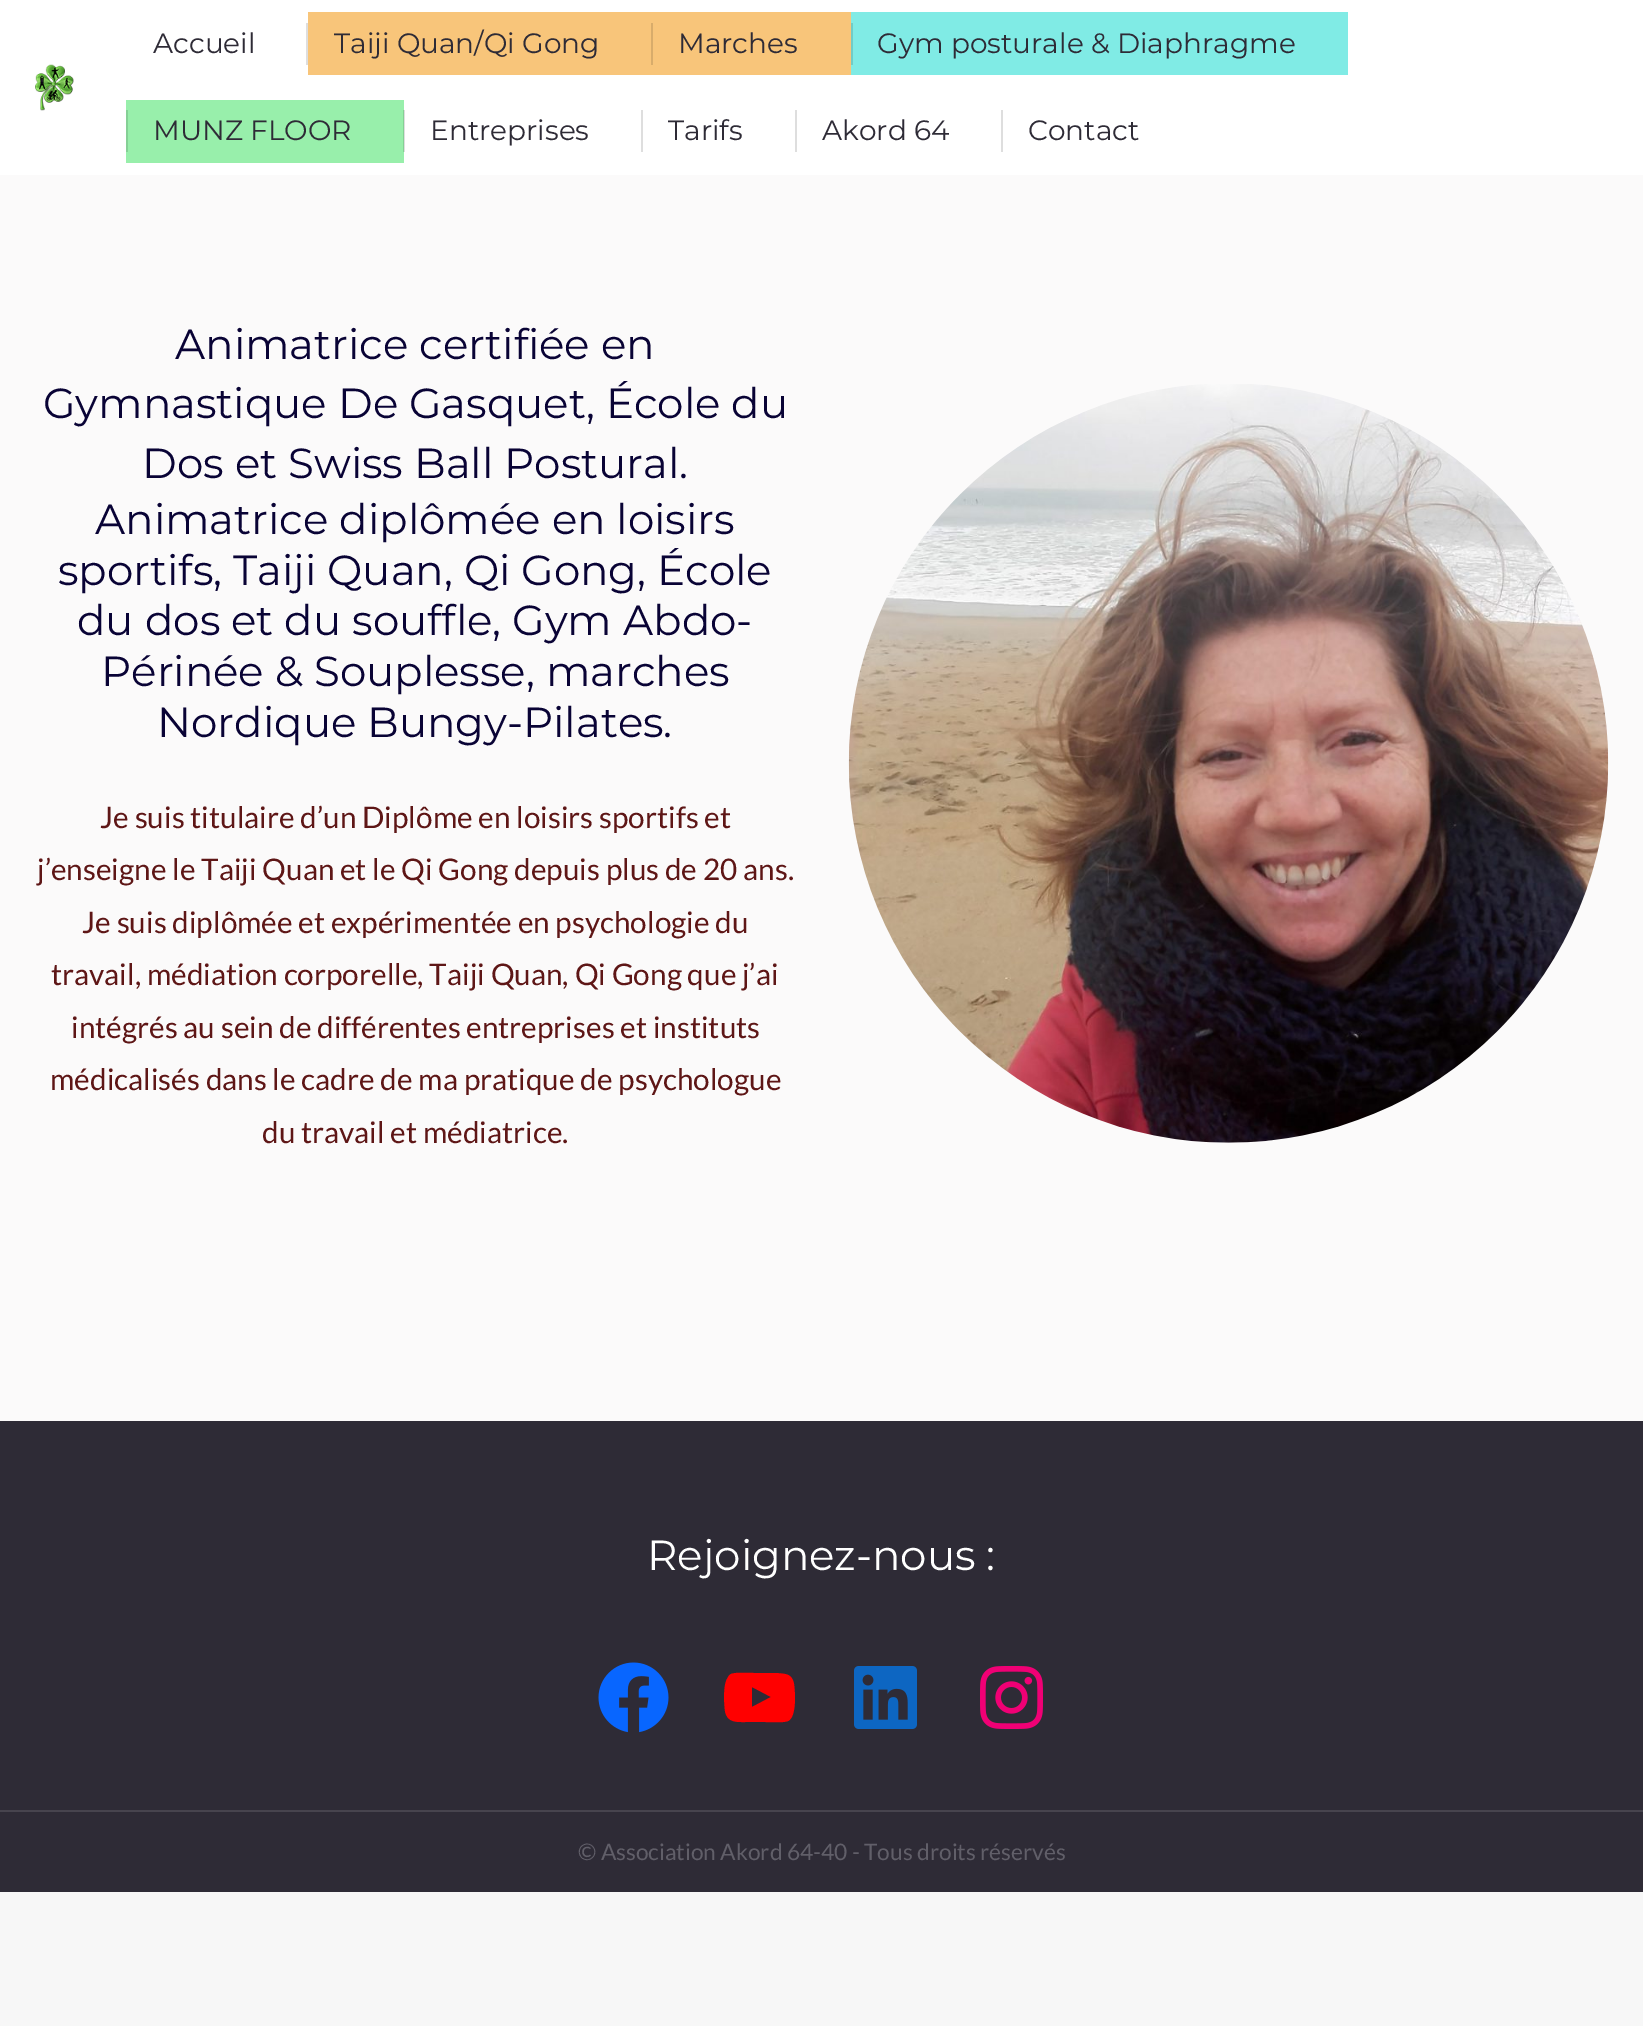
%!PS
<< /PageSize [1643 2026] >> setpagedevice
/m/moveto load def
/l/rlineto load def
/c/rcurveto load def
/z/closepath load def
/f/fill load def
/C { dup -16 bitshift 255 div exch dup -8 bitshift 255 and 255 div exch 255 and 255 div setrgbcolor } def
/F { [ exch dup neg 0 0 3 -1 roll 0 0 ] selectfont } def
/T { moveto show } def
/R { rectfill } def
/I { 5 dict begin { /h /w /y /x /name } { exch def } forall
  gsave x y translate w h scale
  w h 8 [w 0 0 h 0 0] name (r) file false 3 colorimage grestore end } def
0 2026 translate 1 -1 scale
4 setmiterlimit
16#F7F7F7 C
0 0 1643 2026 R
16#FBFAFA C
0 175 1643 1246 R
16#FFFFFF C
0 0 1643 175 R
16#DEDEDE C
404 110 1 42 R
(1.rgb) 35 64 39 47 I
/Montserrat-Regular 28 F
16#2E2B36 C
(Accueil) 153 53 T
16#F8C57A C
308 12 543 63 R
16#DEDEDE C
306 23 2 42 R
16#2E2B36 C
(Taiji Quan/Qi Gong) 334 53 T
16#D8AC6B C
651 23 2 42 R
16#2E2B36 C
(Marches) 678 53 T
16#80EBE5 C
851 12 497 63 R
16#70CCC7 C
851 23 2 42 R
16#2E2B36 C
(Gym posturale & Diaphragme) 877 53 T
16#98EFAB C
126 100 278 63 R
16#85D095 C
403 110 1 42 R
126 110 2 42 R
16#2E2B36 C
(MUNZ FLOOR) 153 140 T
(Entreprises) 430 140 T
16#DEDEDE C
641 110 2 42 R
16#2E2B36 C
(Tarifs) 668 140 T
16#DEDEDE C
795 110 2 42 R
16#2E2B36 C
(Akord 64) 822 140 T
16#DEDEDE C
1001 110 2 42 R
16#2E2B36 C
(Contact) 1028 140 T
/Montserrat-Regular 42 F
16#090335 C
(Animatrice certifiée en) 175 359 T
(Gymnastique De Gasquet, École du) 43 418 T
(Dos et Swiss Ball Postural.) 142 478 T
(Animatrice diplômée en loisirs) 95 534 T
(sportifs, Taiji Quan, Qi Gong, École) 58 585 T
(du dos et du souffle, Gym Abdo-) 77 635 T
(Périnée & Souplesse, marches) 101 686 T
(Nordique Bungy-Pilates.) 157 737 T
/Lato-Regular 29.75 F
16#5E1616 C
(Je suis titulaire d’un Diplôme en loisirs sportifs et) 100 828 T
(j’enseigne le Taiji Quan et le Qi Gong depuis plus de 20 ans.) 37 880 T
(Je suis diplômée et expérimentée en psychologie du) 82 933 T
(travail, médiation corporelle, Taiji Quan, Qi Gong que j’ai) 51 985 T
(intégrés au sein de différentes entreprises et instituts) 71 1038 T
(médicalisés dans le cadre de ma pratique de psychologue) 50 1090 T
(du travail et médiatrice.) 262 1143 T
(2.rgb) 848 384 761 759 I
16#2E2B36 C
0 1421 1643 471 R
/Montserrat-Regular 42 F
16#FFFFFF C
(Rejoignez-nous :) 647 1570 T
(3.rgb) 598 1662 71 71 I
16#FF0000 C
794 1684 m -2 -11 -9 -10 -18 -11 c -22 0 l -5 0 -18 -1 -23 1 c -2 1 -3 3 -4 5 c -4 7 -3 25 -2 32 c 2 12 12 11 21 11 c 19 0 l 5 0 18 1 23 -1 c 9 -4 7 -30 6 -37 c z 752 1707 m 0 -20 l 19 10 l z f
(4.rgb) 854 1666 63 63 I
(5.rgb) 980 1666 63 63 I
16#47444E C
0 1810 1643 2 R
/Lato-Regular 22.75 F
16#615F69 C
(© Association Akord 64-40 - Tous droits réservés) 578 1860 T
showpage
